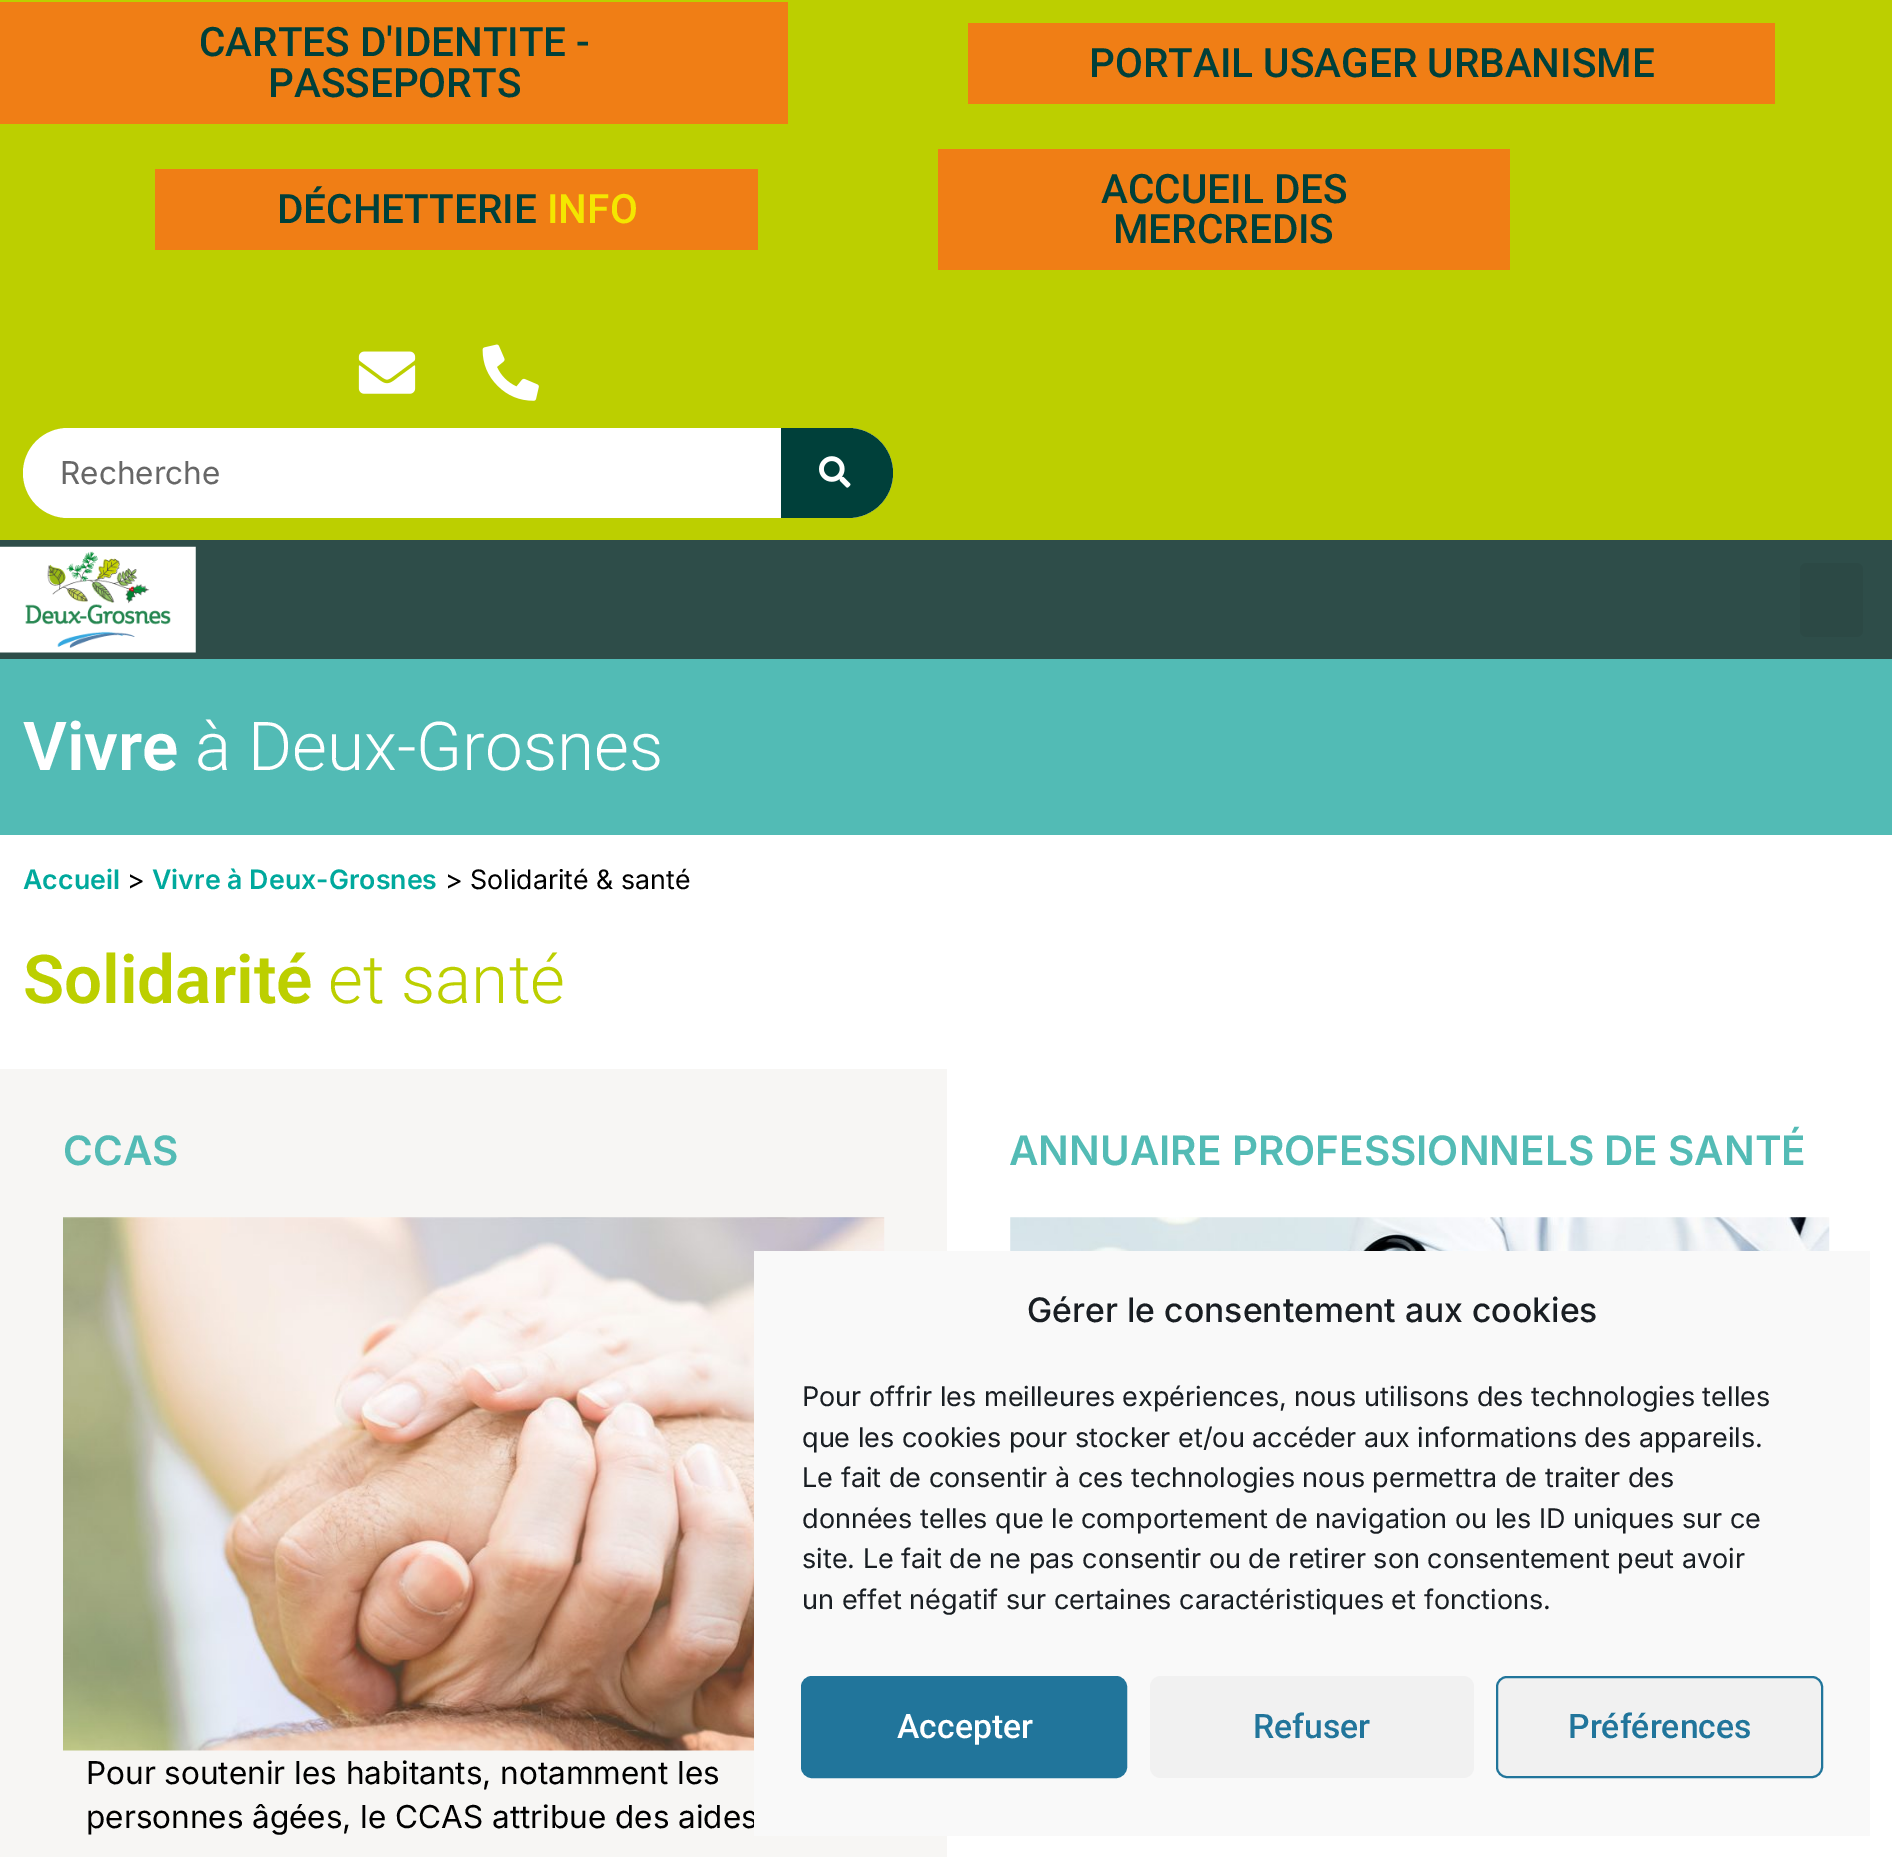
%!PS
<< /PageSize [1892 1857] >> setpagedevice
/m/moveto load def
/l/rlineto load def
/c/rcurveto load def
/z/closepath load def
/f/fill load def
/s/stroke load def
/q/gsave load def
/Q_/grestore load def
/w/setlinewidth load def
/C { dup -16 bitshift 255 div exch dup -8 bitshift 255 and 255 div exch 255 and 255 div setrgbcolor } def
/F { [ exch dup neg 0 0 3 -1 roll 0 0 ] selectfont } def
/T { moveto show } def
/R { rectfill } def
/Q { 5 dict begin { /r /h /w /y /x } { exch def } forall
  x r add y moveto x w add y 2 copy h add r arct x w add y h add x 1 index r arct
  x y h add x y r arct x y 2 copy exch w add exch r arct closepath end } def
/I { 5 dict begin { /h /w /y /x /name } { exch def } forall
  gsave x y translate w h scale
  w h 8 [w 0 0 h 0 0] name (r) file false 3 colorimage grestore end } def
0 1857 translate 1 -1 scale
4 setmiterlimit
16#FFFFFF C
0 0 1892 1857 R
16#BCCF00 C
0 0 1892 540 R
16#F07E15 C
0 2 788 122 R
/Roboto-Medium 40.5 F
16#00403A C
(CARTES D'IDENTITE -) 199 56 T
(PASSEPORTS) 268 97 T
16#F07E15 C
968 23 807 81 R
16#00403A C
(PORTAIL USAGER URBANISME) 1089 77 T
16#F07E15 C
155 169 603 81 R
16#00403A C
(DÉCHETTERIE) 277 223 T
16#F4E600 C
(INFO) 547 223 T
16#F07E15 C
938 149 572 121 R
16#00403A C
(ACCUEIL DES) 1101 203 T
(MERCREDIS) 1113 243 T
(1.rgb) 358 351 58 43 I
(2.rgb) 482 344 57 57 I
16#FFFFFF C
23 428 870 90 45 Q f
/Inter-Regular 31.5 F
16#676767 C
(Recherche) 60 484 T
16#00403A C
781 428 m 67 0 l 25 0 45 20 45 45 c 0 25 -20 45 -45 45 c -67 0 l z f
(3.rgb) 819 456 32 32 I
16#2E4D49 C
0 540 1892 119 R
(4.rgb) 0 546 196 107 I
16#2C4945 C
1800 563 63 74 7 Q f
16#52BBB5 C
0 659 1892 176 R
/Roboto-SemiBold 67.5 F
16#FFFFFF C
(Vivre) 23 770 T
/Roboto-Light 67.5 F
(à Deux-Grosnes) 195 770 T
/Inter-SemiBold 26.75 F
16#00A99D C
(Accueil) 23 889 T
/Inter-Regular 26.75 F
16#000000 C
(>) 127 889 T
/Inter-SemiBold 26.75 F
16#00A99D C
(Vivre à Deux-Grosnes) 152 889 T
/Inter-Regular 26.75 F
16#000000 C
(> Solidarité & santé) 445 889 T
/Roboto-SemiBold 67.5 F
16#BCCF00 C
(Solidarité) 23 1003 T
/Roboto-Light 67.5 F
(et santé) 328 1003 T
16#F7F6F4 C
0 1069 947 788 R
/Inter-SemiBold 40.5 F
16#53BBB5 C
(CCAS) 63 1165 T
(5.rgb) 63 1217 822 534 I
/Inter-Regular 31.5 F
16#000000 C
(Pour soutenir les habitants, notamment les) 86 1784 T
(personnes âgées, le CCAS attribue des aides) 86 1828 T
/Inter-SemiBold 40.5 F
16#53BBB5 C
(ANNUAIRE PROFESSIONNELS DE SANTÉ) 1009 1165 T
(6.rgb) 1010 1217 820 34 I
16#F9F9F9 C
754 1251 1116 585 R
/Inter-Medium 33.75 F
16#191E23 C
(Gérer le consentement aux cookies) 1027 1322 T
/Inter-Regular 27 F
(Pour offrir les meilleures expériences, nous utilisons des technologies telles) 802 1406 T
(que les cookies pour stocker et/ou accéder aux informations des appareils.) 802 1447 T
(Le fait de consentir à ces technologies nous permettra de traiter des) 802 1487 T
(données telles que le comportement de navigation ou les ID uniques sur ce) 802 1528 T
(site. Le fait de ne pas consentir ou de retirer son consentement peut avoir) 802 1568 T
(un effet négatif sur certaines caractéristiques et fonctions.) 802 1609 T
16#21759B C
802 1677 324 100 10 Q q f Q_
2 w
s
/Roboto-Medium 33.75 F
16#FFFFFF C
(Accepter) 897 1738 T
16#F1F1F1 C
1150 1676 324 102 11 Q f
16#21759B C
(Refuser) 1253 1738 T
16#F1F1F1 C
1497 1677 325 100 10 Q q f Q_
16#21759B C
s
(Préférences) 1568 1738 T
showpage
